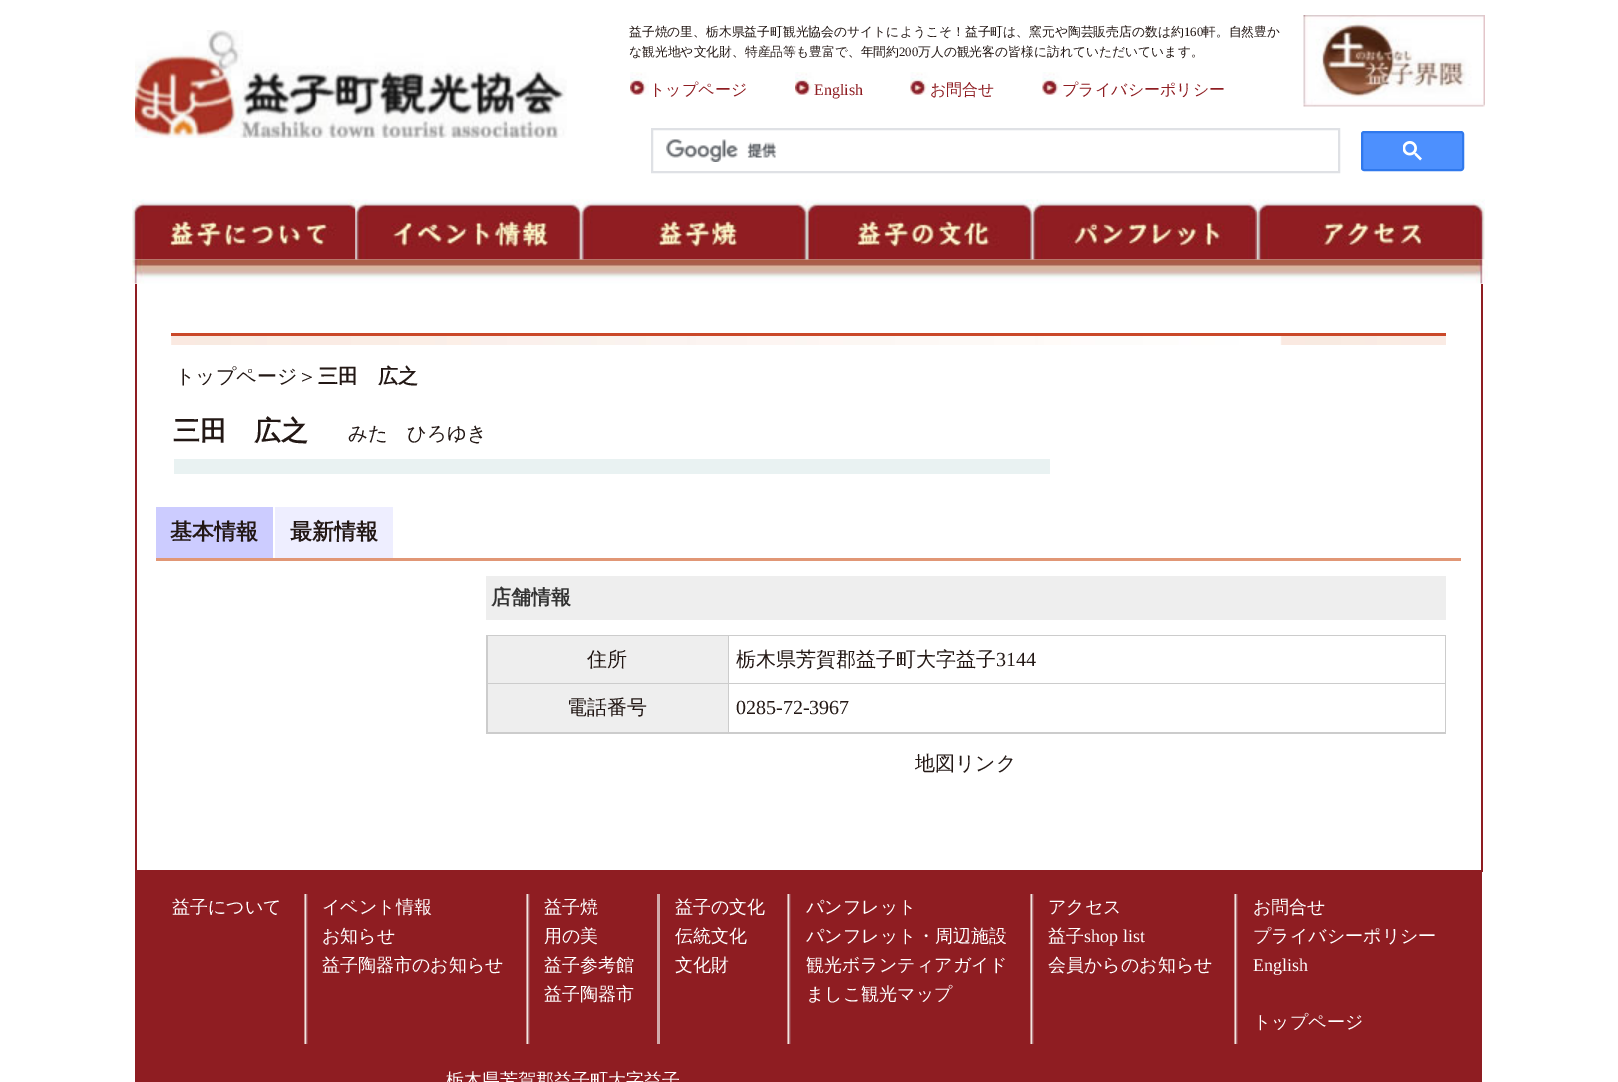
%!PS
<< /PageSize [1618 1082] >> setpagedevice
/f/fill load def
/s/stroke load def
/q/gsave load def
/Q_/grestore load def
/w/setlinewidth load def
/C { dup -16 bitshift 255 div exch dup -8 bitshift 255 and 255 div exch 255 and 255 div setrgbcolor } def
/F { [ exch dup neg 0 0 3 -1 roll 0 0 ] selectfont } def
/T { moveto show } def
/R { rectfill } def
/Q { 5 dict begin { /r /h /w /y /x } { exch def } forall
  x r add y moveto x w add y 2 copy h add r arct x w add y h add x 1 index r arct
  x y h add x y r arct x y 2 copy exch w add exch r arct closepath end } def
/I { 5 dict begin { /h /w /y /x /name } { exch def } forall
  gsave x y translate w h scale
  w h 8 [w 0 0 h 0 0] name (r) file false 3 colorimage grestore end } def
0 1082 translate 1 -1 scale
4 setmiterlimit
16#FFFFFF C
0 0 1618 1082 R
(1.rgb) 135 30 432 108 I
/WenQuanYiZenHei-Medium 12.8 F
16#231815 C
(益子焼の里、栃木県益子町観光協会のサイトにようこそ！益子町は、窯元や陶芸販売店の数は約) 629 36 T
/LiberationSerif-Regular 12.8 F
(160) 1184 36 T
/WenQuanYiZenHei-Medium 12.8 F
(軒。自然豊か) 1203 36 T
(な観光地や文化財、特産品等も豊富で、年間約) 629 56 T
/LiberationSerif-Regular 12.8 F
(200) 899 56 T
/WenQuanYiZenHei-Medium 12.8 F
(万人の観光客の皆様に訪れていただいています。) 918 56 T
(2.rgb) 630 72 19 23 I
/WenQuanYiZenHei-Medium 16 F
16#8F1D22 C
(トップページ) 649 95 T
(2.rgb) 795 72 19 23 I
/LiberationSerif-Regular 16 F
(English) 814 95 T
(3.rgb) 910 72 20 23 I
/WenQuanYiZenHei-Medium 16 F
(お問合せ) 930 95 T
(4.rgb) 1042 72 20 23 I
(プライバシーポリシー) 1062 95 T
(5.rgb) 1303 15 182 92 I
16#DFE1E5 C
2 w
652 129 687 43 rectstroke
(6.rgb) 666 139 111 23 I
16#4D90FE C
1362 132 101 38 2 Q q f Q_
16#3079ED C
s
(7.rgb) 1403 141 19 20 I
(8.rgb) 132 199 224 61 I
(9.rgb) 355 199 226 61 I
(10.rgb) 580 199 227 61 I
(11.rgb) 807 199 225 61 I
(12.rgb) 1032 199 225 61 I
(13.rgb) 1257 199 228 61 I
(14.rgb) 132 259 1356 25 I
16#8F1D22 C
1481 284 2 588 R
135 870 1347 212 R
135 284 2 588 R
16#CA4829 C
171 333 1275 3 R
(15.rgb) 171 336 1275 9 I
/WenQuanYiZenHei-Medium 20 F
16#231815 C
(トップページ＞) 175 383 T
/WenQuanYiZenHei-Bold 20 F
(三田　広之) 318 383 T
/WenQuanYiZenHei-Bold 27 F
(三田　広之) 173 440 T
/WenQuanYiZenHei-Medium 19.5 F
(みた　ひろゆき) 348 440 T
16#E9F2F2 C
174 459 876 15 R
16#CCCCFF C
156 507 117 51 R
/WenQuanYiZenHei-Bold 22 F
16#231815 C
(基本情報) 170 539 T
16#EEEEFF C
275 507 118 51 R
16#231815 C
(最新情報) 290 539 T
16#E19776 C
156 558 1305 3 R
16#EEEEEE C
486 576 960 44 R
/WenQuanYiZenHei-Bold 20 F
16#333333 C
(店舗情報) 491 604 T
16#CCCCCC C
486 635 960 99 R
16#EEEEEE C
488 636 240 47 R
/WenQuanYiZenHei-Medium 20 F
16#231815 C
(住所) 587 666 T
16#FFFFFF C
729 636 716 47 R
16#231815 C
(栃木県芳賀郡益子町大字益子) 736 666 T
/LiberationSerif-Regular 20 F
(3144) 996 666 T
16#EEEEEE C
488 684 240 48 R
/WenQuanYiZenHei-Medium 20 F
16#231815 C
(電話番号) 567 714 T
16#FFFFFF C
729 684 716 48 R
/LiberationSerif-Regular 20 F
16#231815 C
(0285-72-3967) 736 714 T
/WenQuanYiZenHei-Medium 20 F
(地図リンク) 915 770 T
/WenQuanYiZenHei-Medium 18 F
16#FFFFFF C
(益子について) 172 913 T
(16.rgb) 304 894 4 150 I
(イベント情報) 322 913 T
(お知らせ) 322 942 T
(益子陶器市のお知らせ) 322 971 T
(16.rgb) 526 894 4 150 I
(益子焼) 544 913 T
(用の美) 544 942 T
(益子参考館) 544 971 T
(益子陶器市) 544 1000 T
16#D1AAAA C
657 894 3 150 R
16#FFFFFF C
(益子の文化) 675 913 T
(伝統文化) 675 942 T
(文化財) 675 971 T
(16.rgb) 787 894 4 150 I
(パンフレット) 806 913 T
(パンフレット・周辺施設) 806 942 T
(観光ボランティアガイド) 806 971 T
(ましこ観光マップ) 806 1000 T
(16.rgb) 1030 894 4 150 I
(アクセス) 1048 913 T
(益子) 1048 942 T
/LiberationSerif-Regular 18 F
(shop list) 1084 942 T
/WenQuanYiZenHei-Medium 18 F
(会員からのお知らせ) 1048 971 T
(16.rgb) 1234 894 4 150 I
(お問合せ) 1253 913 T
(プライバシーポリシー) 1253 942 T
/LiberationSerif-Regular 18 F
(English) 1253 971 T
/WenQuanYiZenHei-Medium 18 F
(トップページ) 1253 1028 T
(栃木県芳賀郡益子町大字益子) 446 1086 T
showpage
